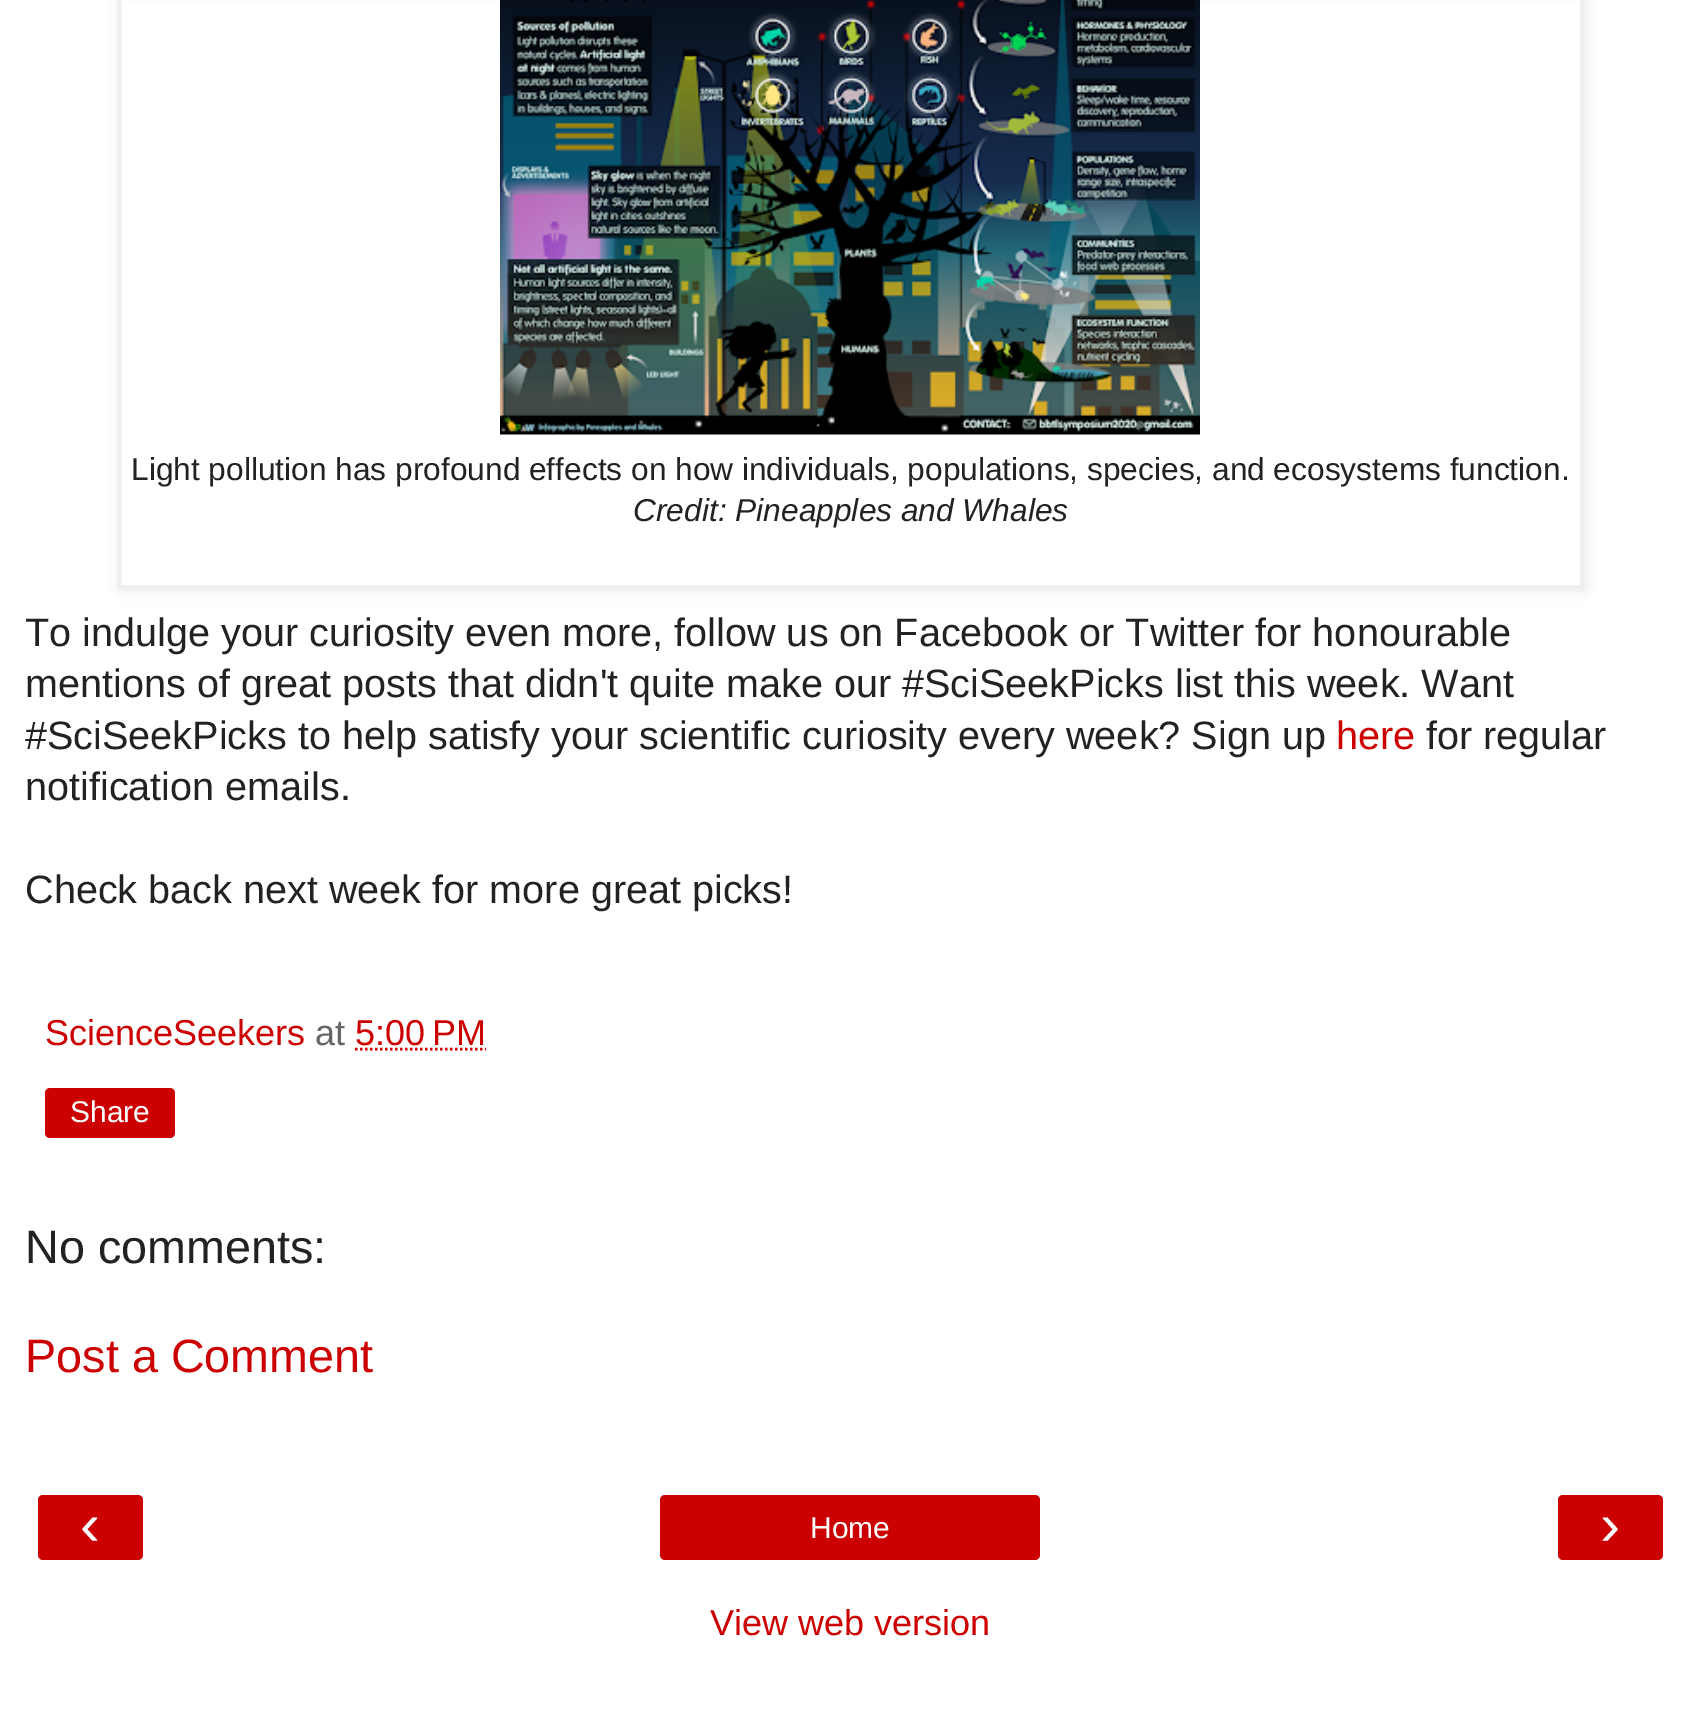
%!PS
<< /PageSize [1698 1710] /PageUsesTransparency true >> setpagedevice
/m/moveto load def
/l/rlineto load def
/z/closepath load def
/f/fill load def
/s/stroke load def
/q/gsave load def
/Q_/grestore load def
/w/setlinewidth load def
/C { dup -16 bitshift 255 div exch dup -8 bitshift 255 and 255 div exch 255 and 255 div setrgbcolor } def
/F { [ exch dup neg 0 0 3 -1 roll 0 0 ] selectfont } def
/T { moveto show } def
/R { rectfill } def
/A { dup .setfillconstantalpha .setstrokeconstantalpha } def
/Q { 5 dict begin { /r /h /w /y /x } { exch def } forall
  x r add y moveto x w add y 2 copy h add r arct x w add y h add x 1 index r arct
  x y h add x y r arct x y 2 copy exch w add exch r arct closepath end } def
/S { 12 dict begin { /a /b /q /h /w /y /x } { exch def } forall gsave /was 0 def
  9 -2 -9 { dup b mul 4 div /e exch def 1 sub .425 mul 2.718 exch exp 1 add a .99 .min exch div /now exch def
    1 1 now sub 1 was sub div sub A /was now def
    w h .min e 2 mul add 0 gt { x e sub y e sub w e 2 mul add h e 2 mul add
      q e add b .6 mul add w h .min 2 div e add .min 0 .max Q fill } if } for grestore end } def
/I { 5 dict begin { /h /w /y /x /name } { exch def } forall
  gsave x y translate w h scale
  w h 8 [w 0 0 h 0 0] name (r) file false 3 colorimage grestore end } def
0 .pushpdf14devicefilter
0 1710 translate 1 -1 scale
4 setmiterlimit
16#FFFFFF C
0 0 1698 1710 R
16#000000 C
120 -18 1465 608 0 6 .1 S
16#FFFFFF C
119.5 -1.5 m 1462 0 l 0 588 l -1462 0 l z q f Q_
16#EEEEEE C
3 w
s
(1.rgb) 500 0 700 435 I
/LiberationSans-Regular 31.7 F
16#222222 C
131 480 m -.1 0 32 (Light pollution has profound effects on how individuals, populations, species, and ecosystems function.) widthshow
/LiberationSans-Italic 31.7 F
(Credit: Pineapples and Whales) 633 521 T
/LiberationSans-Regular 39.6 F
(To indulge your curiosity even more, follow us on Facebook or Twitter for honourable) 25 646 T
(mentions of great posts that didn't quite make our #SciSeekPicks list this week. Want) 25 697 T
(#SciSeekPicks to help satisfy your scientific curiosity every week? Sign up) 25 749 T
16#CC0000 C
(here) 1336 749 T
16#222222 C
(for regular) 1426 749 T
(notification emails.) 25 800 T
(Check back next week for more great picks!) 25 903 T
/LiberationSans-Regular 36 F
16#CC0000 C
(ScienceSeekers) 45 1045 T
16#666666 C
(at) 315 1045 T
16#CC0000 C
(5:00 PM) 355 1045 T
2.5 w
[2.5 2.5] 0 setdash
355 1049 m 131 0 l s
45 1088 130 50 5 Q f
/LiberationSans-Regular 30 F
16#FFFFFF C
(Share) 70 1122 T
/LiberationSans-Regular 46.75 F
16#222222 C
(No comments:) 25 1263 T
16#CC0000 C
(Post a Comment) 25 1372 T
38 1495 105 65 5 Q f
/LiberationSans-Regular 60 F
16#FFFFFF C
(‹) 80 1545 T
16#CC0000 C
660 1495 380 65 5 Q f
/LiberationSans-Regular 30 F
16#FFFFFF C
(Home) 810 1538 T
16#CC0000 C
1558 1495 105 65 5 Q f
/LiberationSans-Regular 60 F
16#FFFFFF C
(›) 1600 1545 T
/LiberationSans-Regular 36 F
16#CC0000 C
(View web version) 710 1635 T
.poppdf14devicefilter showpage
